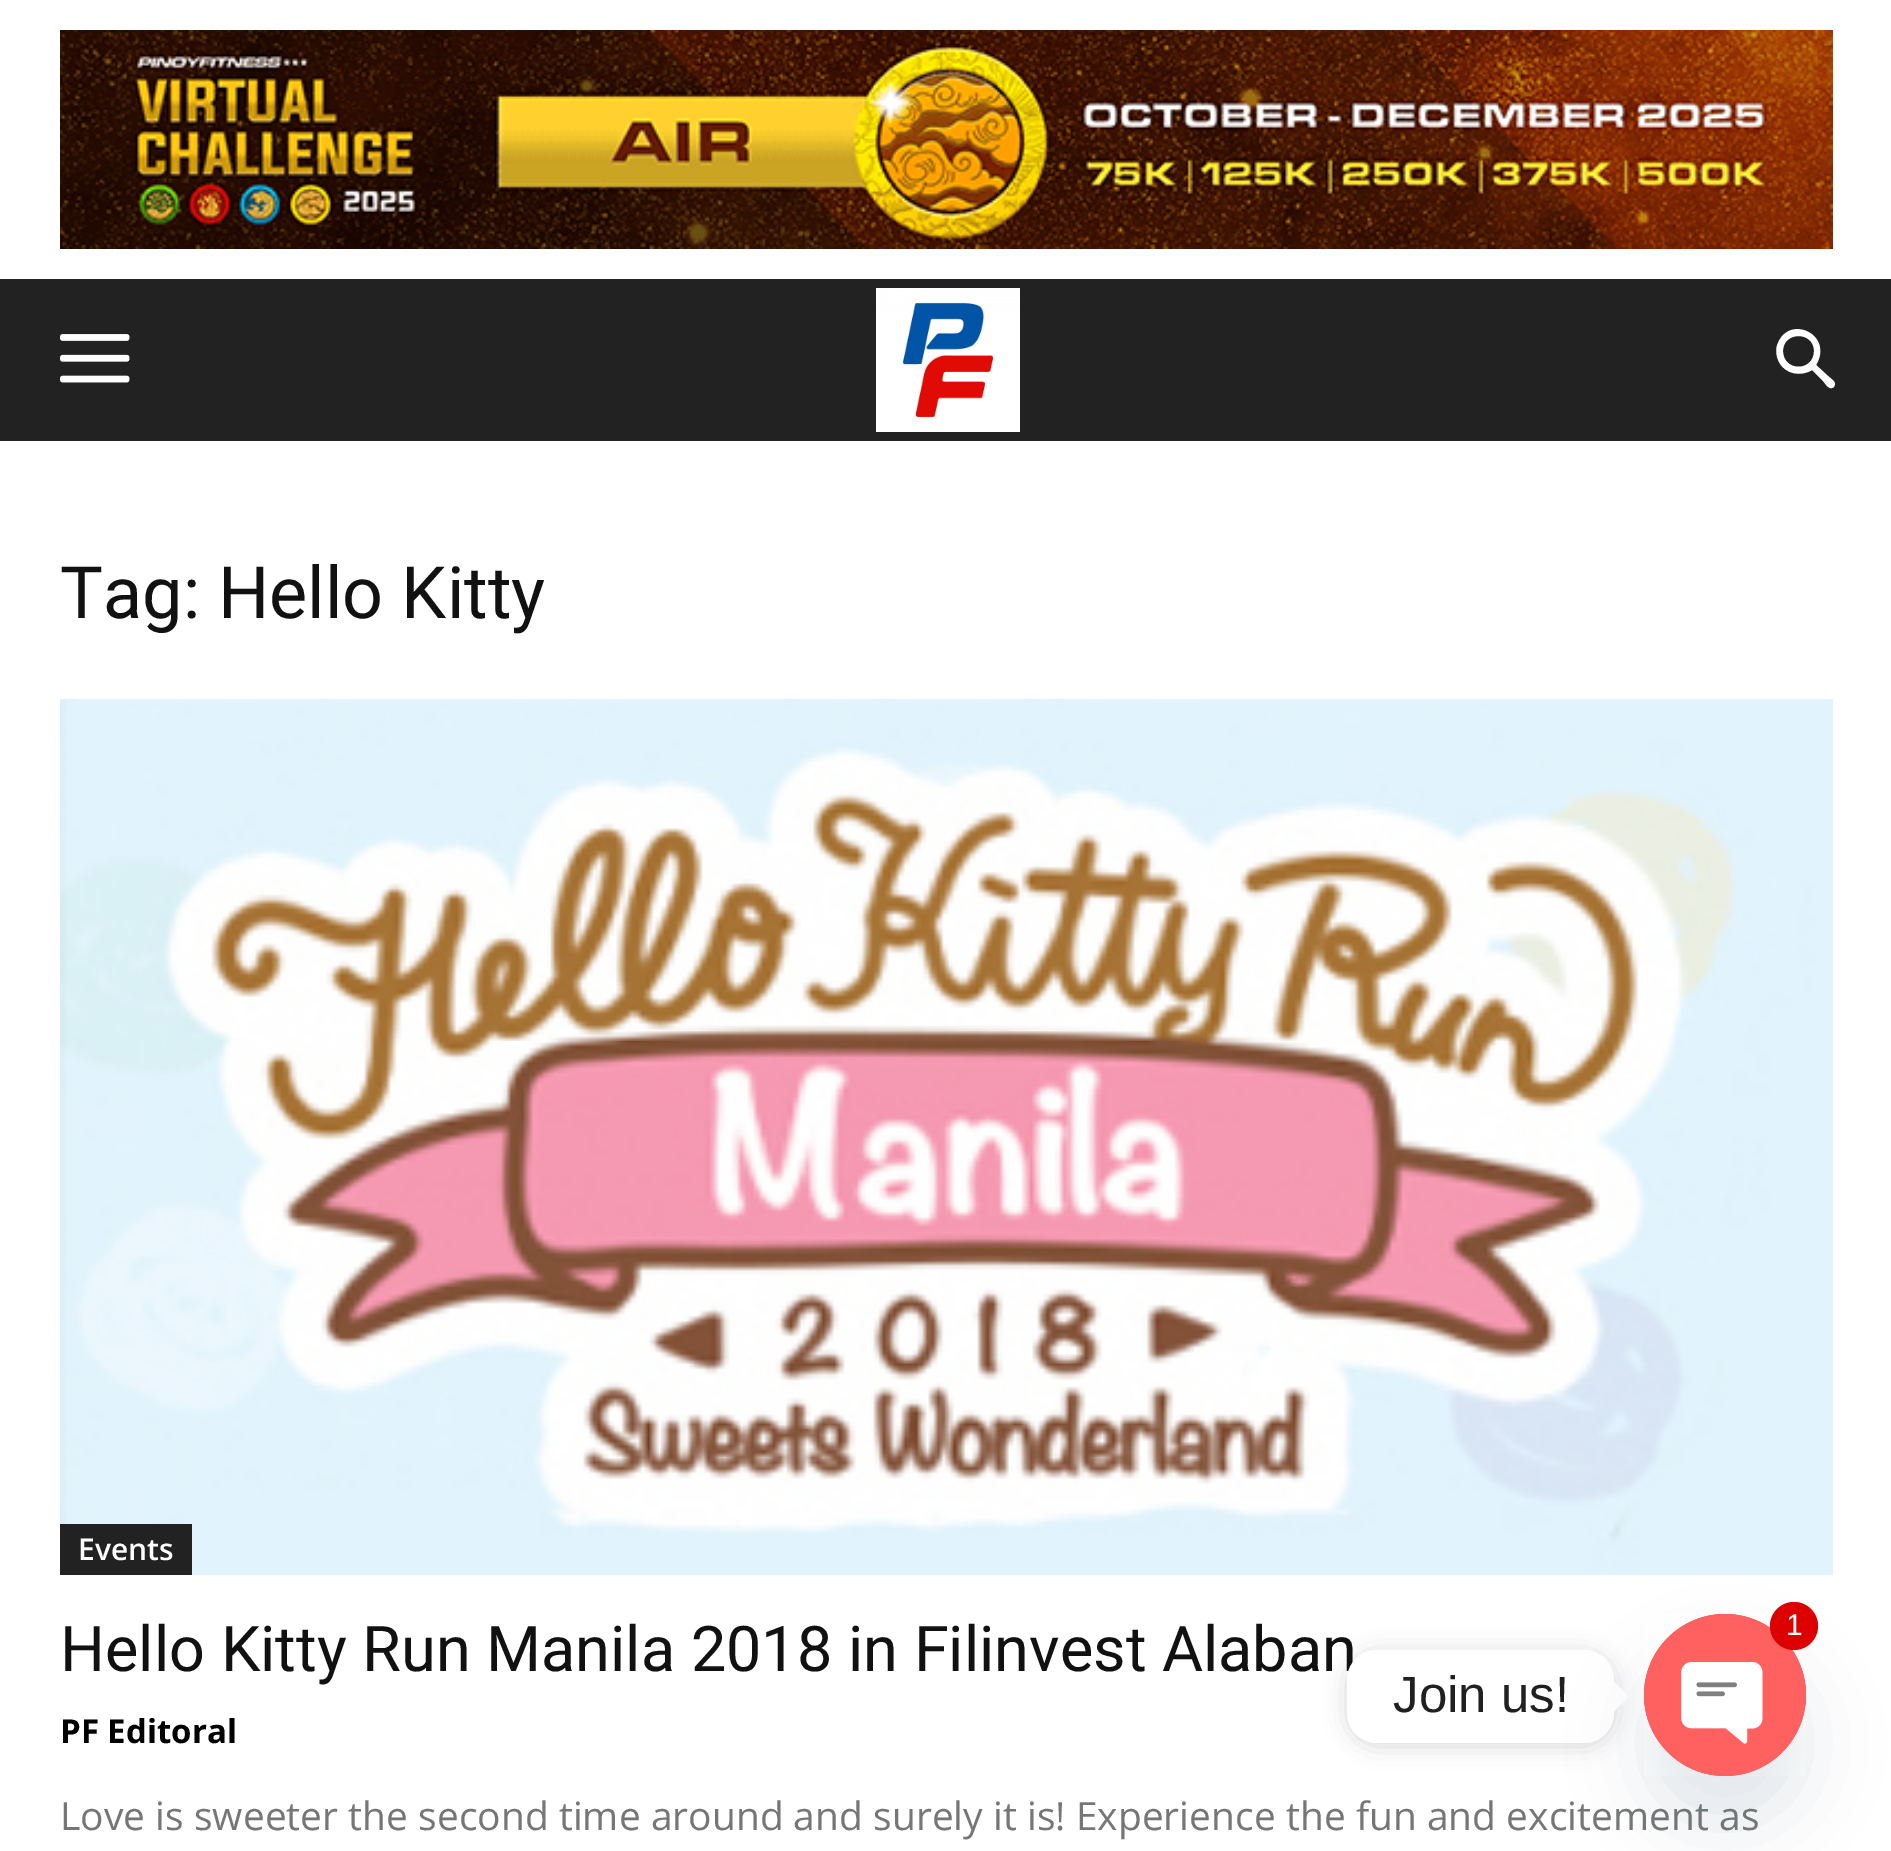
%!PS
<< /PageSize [1891 1851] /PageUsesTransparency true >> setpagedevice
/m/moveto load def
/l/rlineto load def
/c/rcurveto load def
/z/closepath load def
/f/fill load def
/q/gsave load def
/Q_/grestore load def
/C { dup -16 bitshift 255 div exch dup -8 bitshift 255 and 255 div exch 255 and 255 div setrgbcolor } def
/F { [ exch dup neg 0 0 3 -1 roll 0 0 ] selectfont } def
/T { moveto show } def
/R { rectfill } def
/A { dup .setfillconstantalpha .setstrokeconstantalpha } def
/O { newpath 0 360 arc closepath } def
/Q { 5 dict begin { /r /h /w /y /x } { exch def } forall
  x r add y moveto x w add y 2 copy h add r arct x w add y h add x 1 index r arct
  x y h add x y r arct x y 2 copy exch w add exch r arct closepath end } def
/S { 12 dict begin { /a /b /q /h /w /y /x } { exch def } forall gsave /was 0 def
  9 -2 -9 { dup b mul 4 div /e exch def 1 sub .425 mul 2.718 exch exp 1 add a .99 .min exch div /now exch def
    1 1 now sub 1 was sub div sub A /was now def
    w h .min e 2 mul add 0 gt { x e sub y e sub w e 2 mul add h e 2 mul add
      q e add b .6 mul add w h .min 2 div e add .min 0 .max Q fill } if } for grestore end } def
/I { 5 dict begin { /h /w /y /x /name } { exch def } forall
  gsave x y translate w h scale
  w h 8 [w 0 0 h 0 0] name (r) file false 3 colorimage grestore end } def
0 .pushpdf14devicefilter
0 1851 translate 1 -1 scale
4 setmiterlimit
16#FFFFFF C
0 0 1891 1851 R
(1.rgb) 60 30 1773 219 I
16#222222 C
0 279 1891 162 R
(2.rgb) 60 334 70 49 I
(3.rgb) 876 288 144 144 I
16#FFFFFF C
1814 351 m 0 21 -31 21 -31 0 c 0 -20 31 -20 31 0 c z 1835 384 m 0 -3 -5 -6 -7 -8 c -12 -11 l 18 -30 -26 -51 -38 -22 c -3 6 -2 13 1 19 c 6 12 22 15 33 8 c 11 11 l 2 2 5 8 9 7 c 1 0 3 -2 3 -4 c z f
/Roboto-Regular 72 F
16#111111 C
(Tag: Hello Kitty) 60 618 T
(4.rgb) 60 699 1773 876 I
16#222222 C
60 1524 132 51 R
/OpenSans-SemiBold 30 F
16#FFFFFF C
(Events) 78 1560 T
/Roboto-Regular 63 F
16#111111 C
(Hello Kitty Run Manila 2018 in Filinvest Alaban) 60 1671 T
/OpenSans-Bold 33 F
16#000000 C
(PF Editoral) 60 1743 T
/OpenSans-Regular 39 F
16#767676 C
(Love is sweeter the second time around and surely it is! Experience the fun and excitement as) 60 1830 T
q
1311 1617 m 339 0 l 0 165 l -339 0 l z 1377 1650 m 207 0 l 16.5 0 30 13.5 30 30 c 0 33 l 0 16.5 -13.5 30 -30 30 c -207 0 l -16.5 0 -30 -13.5 -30 -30 c 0 -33 l 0 -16.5 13.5 -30 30 -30 c z eoclip newpath
16#000000 C
1347 1653 267 93 30 11.5 .15 S
Q_
16#FFFFFF C
1347 1650 267 93 30 Q f
1614 1711.5 m 0 -30 l 15 15 l z f
16#49687E C
1644 1662 162 162 81 36 .16 S
(5.rgb) 1644 1614 162 162 I
16#DD0000 C
1794 1626 24 O f
/LiberationSans-Regular 30 F
16#FFFFFF C
(1) 1786 1635 T
/LiberationSans-Regular 51 F
16#202020 C
(Join us!) 1393 1712 T
.poppdf14devicefilter showpage
